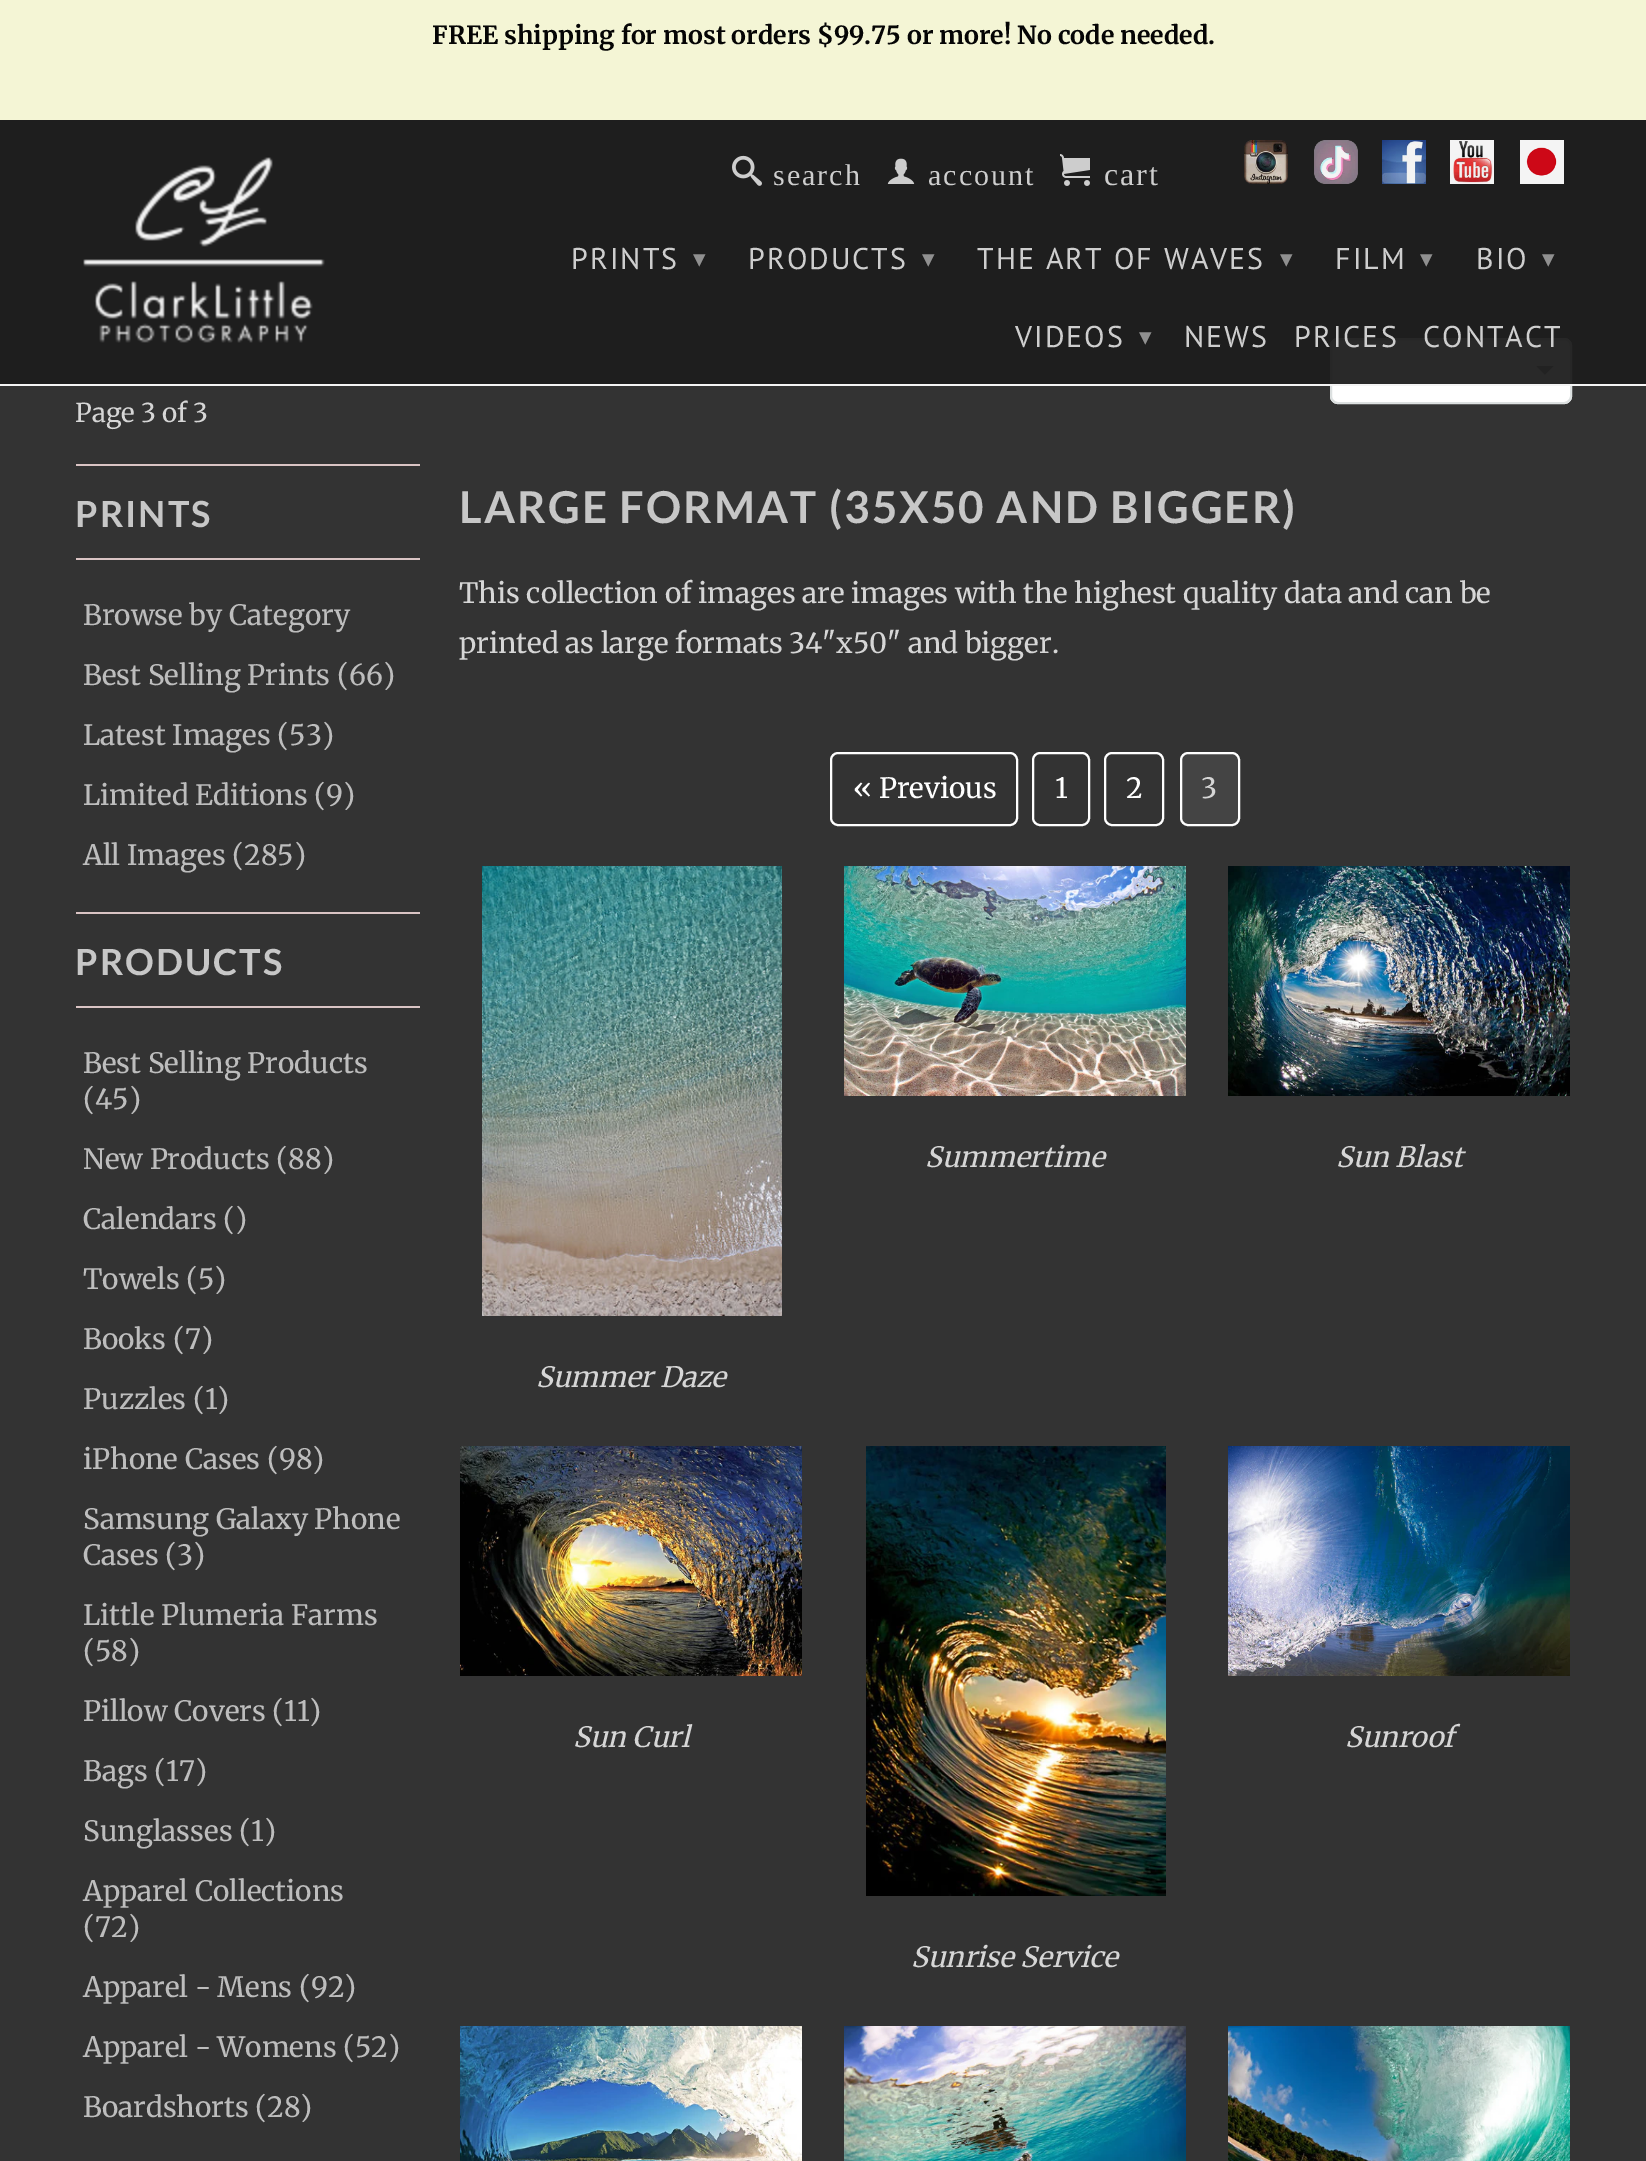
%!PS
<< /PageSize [1646 2161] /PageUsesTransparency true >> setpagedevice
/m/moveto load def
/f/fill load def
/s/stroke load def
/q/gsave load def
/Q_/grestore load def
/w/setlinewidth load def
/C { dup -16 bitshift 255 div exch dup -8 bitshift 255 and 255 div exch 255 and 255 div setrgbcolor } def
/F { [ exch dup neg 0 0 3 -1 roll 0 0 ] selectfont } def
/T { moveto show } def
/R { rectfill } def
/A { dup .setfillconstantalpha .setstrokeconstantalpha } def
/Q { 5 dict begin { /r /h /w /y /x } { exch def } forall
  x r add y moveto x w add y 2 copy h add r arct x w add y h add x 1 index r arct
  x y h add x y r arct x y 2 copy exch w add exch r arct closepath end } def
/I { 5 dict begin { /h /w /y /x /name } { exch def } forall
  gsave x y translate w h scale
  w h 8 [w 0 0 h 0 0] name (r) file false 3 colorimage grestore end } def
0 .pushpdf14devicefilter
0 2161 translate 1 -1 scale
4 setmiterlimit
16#333333 C
0 0 1646 2161 R
16#FFFFFF C
1330 338 242 66 8 Q f
(10.rgb) 1536 366 18 9 I
16#DCE0E0 C
2 w
1331 339 240 64 7 Q s
0.95 A
16#1D1D1D C
0 120 1646 266 R
16#FFFFFF C
0 384 1646 2 R
1 A
16#F4F5D5 C
0 0 1646 120 R
/Merriweather-Bold 24.9 F
16#050505 C
(FREE shipping for most orders $99.75 or more! No code needed.) 432 44 T
(1.rgb) 83 157 242 186 I
(2.rgb) 732 155 30 31 I
/LiberationSerif-Regular 30 F
16#CECECE C
773 185 m 2 0 (search) ashow
(3.rgb) 887 158 28 26 I
928 185 m 2 0 (account) ashow
(4.rgb) 1060 154 30 32 I
/LiberationSerif-Regular 32 F
1104 185 m 2 0 (cart) ashow
(5.rgb) 1244 140 44 44 I
(6.rgb) 1314 140 44 44 I
(7.rgb) 1382 140 44 44 I
(8.rgb) 1450 140 44 44 I
(9.rgb) 1520 140 44 44 I
/PTSans-Regular 30 F
571 269 m 2 0 (PRINTS) ashow
/DejaVuSans-Regular 25 F
16#909090 C
693 267 m 2 0 (▾) ashow
/PTSans-Regular 30 F
16#CECECE C
748 269 m 2 0 (PRODUCTS) ashow
/DejaVuSans-Regular 25 F
16#909090 C
922 267 m 2 0 (▾) ashow
/PTSans-Regular 30 F
16#CECECE C
977 269 m 2 0 (THE ART OF WAVES) ashow
/DejaVuSans-Regular 25 F
16#909090 C
1280 267 m 2 0 (▾) ashow
/PTSans-Regular 30 F
16#CECECE C
1335 269 m 2 0 (FILM) ashow
/DejaVuSans-Regular 25 F
16#909090 C
1420 267 m 2 0 (▾) ashow
/PTSans-Regular 30 F
16#CECECE C
1476 269 m 2 0 (BIO) ashow
/DejaVuSans-Regular 25 F
16#909090 C
1542 267 m 2 0 (▾) ashow
/PTSans-Regular 30 F
16#CECECE C
1015 347 m 2 0 (VIDEOS) ashow
/DejaVuSans-Regular 25 F
16#909090 C
1139 345 m 2 0 (▾) ashow
/PTSans-Regular 30 F
16#CECECE C
1184 347 m 2 0 (NEWS) ashow
1294 347 m 2 0 (PRICES) ashow
1423 347 m 2 0 (CONTACT) ashow
/Merriweather-Regular 26 F
16#D6D6D6 C
(Page 3 of 3) 75 422 T
16#DAC4C4 C
76 464 344 2 R
76 558 344 2 R
/Lato-Bold 36 F
16#C7C7C7 C
75 527 m 2 0 (PRINTS) ashow
/Merriweather-Regular 28 F
16#BDBDBD C
(Browse by Category) 83 625 T
(Best Selling Prints \(66\)) 83 685 T
(Latest Images \(53\)) 83 745 T
(Limited Editions \(9\)) 83 805 T
(All Images \(285\)) 83 865 T
16#DAC4C4 C
76 912 344 2 R
76 1006 344 2 R
/Lato-Bold 36 F
16#C7C7C7 C
75 975 m 2 0 (PRODUCTS) ashow
/Merriweather-Regular 28 F
16#BDBDBD C
(Best Selling Products) 83 1073 T
(\(45\)) 83 1109 T
(New Products \(88\)) 83 1169 T
(Calendars \(\)) 83 1229 T
(Towels \(5\)) 83 1289 T
(Books \(7\)) 83 1349 T
(Puzzles \(1\)) 83 1409 T
(iPhone Cases \(98\)) 83 1469 T
(Samsung Galaxy Phone) 83 1529 T
(Cases \(3\)) 83 1565 T
(Little Plumeria Farms) 83 1625 T
(\(58\)) 83 1661 T
(Pillow Covers \(11\)) 83 1721 T
(Bags \(17\)) 83 1781 T
(Sunglasses \(1\)) 83 1841 T
(Apparel Collections) 83 1901 T
(\(72\)) 83 1937 T
(Apparel - Mens \(92\)) 83 1997 T
(Apparel - Womens \(52\)) 83 2057 T
(Boardshorts \(28\)) 83 2117 T
/Lato-Bold 44 F
16#C7C7C7 C
459 523 m 2 0 (LARGE FORMAT \(35X50 AND BIGGER\)) ashow
/Merriweather-Regular 28 F
16#D6D6D6 C
(This collection of images are images with the highest quality data and can be) 459 603 T
(printed as large formats 34"x50" and bigger.) 459 653 T
16#FFFFFF C
831 753 186 72 7 Q s
(« Previous) 853 798 T
1033 753 56 72 7 Q s
(1) 1055 798 T
1105 753 58 72 7 Q s
(2) 1126 798 T
16#444444 C
1181 753 58 72 7 Q q f Q_
16#FFFFFF C
s
16#D6D6D6 C
(3) 1201 798 T
(11.rgb) 844 866 342 230 I
/Merriweather-Italic 28 F
(Summertime) 925 1167 T
(12.rgb) 1228 866 342 230 I
(Sun Blast) 1336 1167 T
(13.rgb) 482 866 300 450 I
(Summer Daze) 536 1387 T
(14.rgb) 460 1446 342 230 I
(Sun Curl) 573 1747 T
(15.rgb) 1228 1446 342 230 I
(Sunroof) 1345 1747 T
(16.rgb) 866 1446 300 450 I
(Sunrise Service) 911 1967 T
(17.rgb) 460 2026 342 135 I
(18.rgb) 844 2026 342 135 I
(19.rgb) 1228 2026 342 135 I
.poppdf14devicefilter showpage
